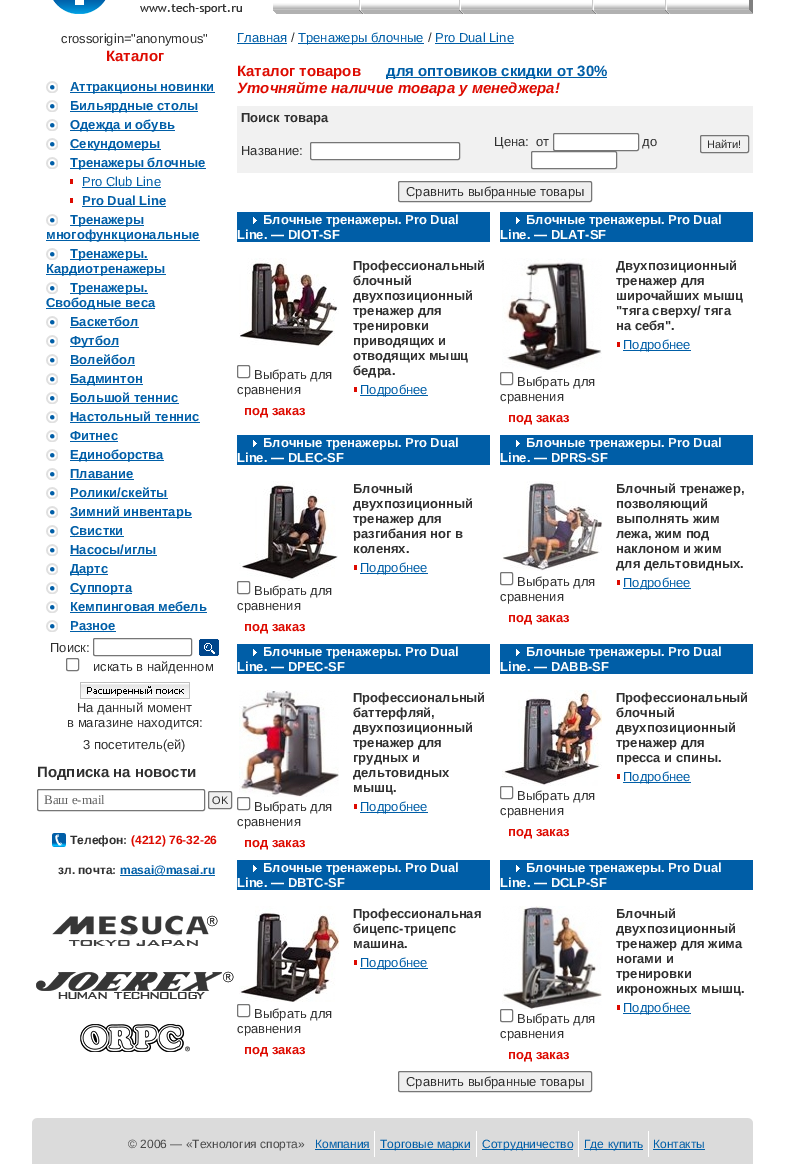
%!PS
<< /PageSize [785 1164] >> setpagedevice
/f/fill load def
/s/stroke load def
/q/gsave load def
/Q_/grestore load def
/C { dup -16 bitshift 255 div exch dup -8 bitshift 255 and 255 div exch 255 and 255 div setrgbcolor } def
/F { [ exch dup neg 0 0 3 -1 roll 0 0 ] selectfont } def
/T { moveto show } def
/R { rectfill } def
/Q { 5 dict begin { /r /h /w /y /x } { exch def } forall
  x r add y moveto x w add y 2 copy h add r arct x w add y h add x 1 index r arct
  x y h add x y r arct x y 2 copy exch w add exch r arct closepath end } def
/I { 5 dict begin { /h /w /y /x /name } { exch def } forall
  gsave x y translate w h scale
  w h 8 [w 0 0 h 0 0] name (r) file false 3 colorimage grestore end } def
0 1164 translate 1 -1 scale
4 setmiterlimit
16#FFFFFF C
0 0 785 1164 R
(1.rgb) 53 0 189 14 I
(2.rgb) 273 3 86 11 I
(3.rgb) 359 0 100 14 I
(4.rgb) 459 0 133 14 I
(5.rgb) 592 0 73 14 I
(6.rgb) 665 0 84 14 I
(7.rgb) 749 0 4 14 I
/LiberationSans-Regular 13 F
16#303030 C
(crossorigin="anonymous") 61 43 T
/LiberationSans-Bold 15 F
16#DD0A00 C
(Каталог) 106 61 T
(8.rgb) 46 81 12 12 I
16#005EA7 C
70 92 145 1 R
/LiberationSans-Bold 13 F
(Аттракционы новинки) 70 91 T
(8.rgb) 46 100 12 12 I
70 111 128 1 R
(Бильярдные столы) 70 110 T
(8.rgb) 46 119 12 12 I
70 130 105 1 R
(Одежда и обувь) 70 129 T
(8.rgb) 46 138 12 12 I
70 149 91 1 R
(Секундомеры) 70 148 T
(8.rgb) 46 157 12 12 I
70 168 136 1 R
(Тренажеры блочные) 70 167 T
/LiberationSans-Regular 13 F
(Pro Club Line) 82 186 T
16#DD0A00 C
70 179 3 5 R
16#005EA7 C
82 187 79 1 R
/LiberationSans-Bold 13 F
(Pro Dual Line) 82 205 T
16#DD0A00 C
70 198 3 5 R
16#005EA7 C
82 206 84 1 R
(8.rgb) 46 214 12 12 I
70 225 74 1 R
(Тренажеры) 70 224 T
46 240 154 1 R
(многофункциональные) 46 239 T
(8.rgb) 46 248 12 12 I
70 259 78 1 R
(Тренажеры.) 70 258 T
46 274 120 1 R
(Кардиотренажеры) 46 273 T
(8.rgb) 46 282 12 12 I
70 293 78 1 R
(Тренажеры.) 70 292 T
46 308 109 1 R
(Свободные веса) 46 307 T
(8.rgb) 46 316 12 12 I
(Баскетбол) 70 326 T
70 327 69 1 R
(8.rgb) 46 335 12 12 I
70 346 49 1 R
(Футбол) 70 345 T
(8.rgb) 46 354 12 12 I
(Волейбол) 70 364 T
70 365 65 1 R
(8.rgb) 46 373 12 12 I
70 384 73 1 R
(Бадминтон) 70 383 T
(8.rgb) 46 392 12 12 I
(Большой теннис) 70 402 T
70 403 109 1 R
(8.rgb) 46 411 12 12 I
(Настольный теннис) 70 421 T
70 422 130 1 R
(8.rgb) 46 430 12 12 I
(Фитнес) 70 440 T
70 441 48 1 R
(8.rgb) 46 449 12 12 I
70 460 94 1 R
(Единоборства) 70 459 T
(8.rgb) 46 468 12 12 I
(Плавание) 70 478 T
70 479 64 1 R
(8.rgb) 46 487 12 12 I
(Ролики/скейты) 70 497 T
70 498 98 1 R
(8.rgb) 46 506 12 12 I
70 517 122 1 R
(Зимний инвентарь) 70 516 T
(8.rgb) 46 525 12 12 I
(Свистки) 70 535 T
70 536 54 1 R
(8.rgb) 46 544 12 12 I
(Насосы/иглы) 70 554 T
70 555 87 1 R
(8.rgb) 46 563 12 12 I
70 574 38 1 R
(Дартс) 70 573 T
(8.rgb) 46 582 12 12 I
70 593 62 1 R
(Суппорта) 70 592 T
(8.rgb) 46 601 12 12 I
(Кемпинговая мебель) 70 611 T
70 612 137 1 R
(8.rgb) 46 620 12 12 I
(Разное) 70 630 T
70 631 46 1 R
/LiberationSans-Regular 13 F
16#303030 C
(Поиск:) 50 652 T
16#767676 C
93.5 638.5 98 17 1.5 Q s
(9.rgb) 199 639 20 17 I
66.5 658.5 12 12 1.5 Q s
16#303030 C
(искать в найденном) 93 671 T
(10.rgb) 80 682 110 17 I
(На данный момент) 77 712 T
(в магазине находится:) 67 727 T
(3 посетитель\(ей\)) 83 749 T
/LiberationSans-Bold 15 F
(Подписка на новости) 37 777 T
16#767676 C
37.5 789.5 167 21 1.5 Q s
/LiberationSerif-Regular 13 F
16#606060 C
(Ваш e-mail) 44 804 T
16#EFEFEF C
208.5 791.5 23 17 1.5 Q q f Q_
16#767676 C
s
/LiberationSans-Regular 11 F
16#303030 C
(OK) 212 804 T
(11.rgb) 52 833 14 14 I
/LiberationSans-Bold 12 F
(Телефон:) 70 844 T
16#DD0A00 C
(\(4212\) 76-32-26) 131 844 T
16#303030 C
(зл. почта:) 58 874 T
16#005EA7 C
120 875 95 1 R
(masai@masai.ru) 120 874 T
(12.rgb) 52 915 166 31 I
(13.rgb) 36 971 198 28 I
(14.rgb) 80 1024 110 28 I
/LiberationSans-Regular 13 F
(Главная) 237 42 T
237 43 50 1 R
16#303030 C
(/) 291 42 T
16#005EA7 C
298 43 126 1 R
(Тренажеры блочные) 298 42 T
16#303030 C
(/) 428 42 T
16#005EA7 C
(Pro Dual Line) 435 42 T
435 43 79 1 R
/LiberationSans-Bold 15 F
16#DD0A00 C
(Каталог товаров) 237 76 T
16#005EA7 C
386 77 221 1 R
(для оптовиков скидки от 30%) 386 76 T
/LiberationSans-BoldItalic 15 F
16#DD0A00 C
(Уточняйте наличие товара у менеджера!) 237 93 T
16#F1F1F1 C
237 106 516 67 R
/LiberationSans-Bold 13 F
16#303030 C
(Поиск товара) 241 122 T
/LiberationSans-Regular 13 F
(Цена:  от) 494 146 T
16#FFFFFF C
553.5 133.5 85 17 1.5 Q q f Q_
16#767676 C
s
16#303030 C
(до) 642 146 T
16#FFFFFF C
531.5 151.5 85 17 1.5 Q q f Q_
16#767676 C
s
700.5 135.5 48 17 1.5 Q s
/LiberationSans-Regular 11 F
16#303030 C
(Найти!) 707 148 T
/LiberationSans-Regular 13 F
(Название:) 241 155 T
16#FFFFFF C
310.5 142.5 149 17 1.5 Q q f Q_
16#767676 C
s
16#EFEFEF C
398.5 181.5 193 20 1.5 Q q f Q_
16#767676 C
s
16#303030 C
(Сравнить выбранные товары) 406 196 T
16#005EA7 C
237 212 253 30 R
(15.rgb) 253 217 4 7 I
/LiberationSans-Bold 13 F
16#FFFFFF C
(Блочные тренажеры. Pro Dual) 263 224 T
(Line. — DIOT-SF) 237 239 T
(16.rgb) 239 258 100 88 I
16#767676 C
237.5 365.5 12 12 1.5 Q s
/LiberationSans-Regular 13 F
16#303030 C
(Выбрать для) 254 379 T
(сравнения) 237 394 T
/LiberationSans-Bold 13 F
(Профессиональный) 353 270 T
(блочный) 353 285 T
(двухпозиционный) 353 300 T
(тренажер для) 353 315 T
(тренировки) 353 330 T
(приводящих и) 353 345 T
(отводящих мышц) 353 360 T
(бедра.) 353 375 T
16#005EA7 C
360 395 68 1 R
/LiberationSans-Regular 13 F
(Подробнее) 360 394 T
16#DD0A00 C
354 387 3 5 R
/LiberationSans-Bold 13 F
(под заказ) 244 415 T
16#005EA7 C
500 212 253 30 R
(15.rgb) 516 217 4 7 I
16#FFFFFF C
(Блочные тренажеры. Pro Dual) 526 224 T
(Line. — DLAT-SF) 500 239 T
16#303030 C
(Двухпозиционный) 616 270 T
(тренажер для) 616 285 T
(широчайших мышц) 616 300 T
("тяга сверху/ тяга) 616 315 T
(на себя".) 616 330 T
16#005EA7 C
623 350 68 1 R
/LiberationSans-Regular 13 F
(Подробнее) 623 349 T
16#DD0A00 C
617 342 3 5 R
(17.rgb) 502 258 100 114 I
16#767676 C
500.5 372.5 12 12 1.5 Q s
16#303030 C
(Выбрать для) 517 386 T
(сравнения) 500 401 T
/LiberationSans-Bold 13 F
16#DD0A00 C
(под заказ) 508 422 T
16#005EA7 C
237 435 253 30 R
(15.rgb) 253 440 4 7 I
16#FFFFFF C
(Блочные тренажеры. Pro Dual) 263 447 T
(Line. — DLЕС-SF) 237 462 T
16#303030 C
(Блочный) 353 493 T
(двухпозиционный) 353 508 T
(тренажер для) 353 523 T
(разгибания ног в) 353 538 T
(коленях.) 353 553 T
16#005EA7 C
360 573 68 1 R
/LiberationSans-Regular 13 F
(Подробнее) 360 572 T
16#DD0A00 C
354 565 3 5 R
(18.rgb) 239 481 99 100 I
16#767676 C
237.5 581.5 12 12 1.5 Q s
16#303030 C
(Выбрать для) 254 595 T
(сравнения) 237 610 T
/LiberationSans-Bold 13 F
16#DD0A00 C
(под заказ) 244 631 T
16#005EA7 C
500 435 253 30 R
(15.rgb) 516 440 4 7 I
16#FFFFFF C
(Блочные тренажеры. Pro Dual) 526 447 T
(Line. — DPRS-SF) 500 462 T
(19.rgb) 502 481 100 90 I
16#767676 C
500.5 572.5 12 12 1.5 Q s
/LiberationSans-Regular 13 F
16#303030 C
(Выбрать для) 517 586 T
(сравнения) 500 601 T
/LiberationSans-Bold 13 F
(Блочный тренажер,) 616 493 T
(позволяющий) 616 508 T
(выполнять жим) 616 523 T
(лежа, жим под) 616 538 T
(наклоном и жим) 616 553 T
(для дельтовидных.) 616 568 T
16#005EA7 C
623 588 68 1 R
/LiberationSans-Regular 13 F
(Подробнее) 623 587 T
16#DD0A00 C
617 580 3 5 R
/LiberationSans-Bold 13 F
(под заказ) 508 622 T
16#005EA7 C
237 644 253 30 R
(15.rgb) 253 649 4 7 I
16#FFFFFF C
(Блочные тренажеры. Pro Dual) 263 656 T
(Line. — DPЕС-SF) 237 671 T
(20.rgb) 239 690 100 107 I
16#767676 C
237.5 797.5 12 12 1.5 Q s
/LiberationSans-Regular 13 F
16#303030 C
(Выбрать для) 254 811 T
(сравнения) 237 826 T
/LiberationSans-Bold 13 F
(Профессиональный) 353 702 T
(баттерфляй,) 353 717 T
(двухпозиционный) 353 732 T
(тренажер для) 353 747 T
(грудных и) 353 762 T
(дельтовидных) 353 777 T
(мышц.) 353 792 T
16#005EA7 C
360 812 68 1 R
/LiberationSans-Regular 13 F
(Подробнее) 360 811 T
16#DD0A00 C
354 804 3 5 R
/LiberationSans-Bold 13 F
(под заказ) 244 847 T
16#005EA7 C
500 644 253 30 R
(15.rgb) 516 649 4 7 I
16#FFFFFF C
(Блочные тренажеры. Pro Dual) 526 656 T
(Line. — DАВВ-SF) 500 671 T
16#303030 C
(Профессиональный) 616 702 T
(блочный) 616 717 T
(двухпозиционный) 616 732 T
(тренажер для) 616 747 T
(пресса и спины.) 616 762 T
16#005EA7 C
623 782 68 1 R
/LiberationSans-Regular 13 F
(Подробнее) 623 781 T
16#DD0A00 C
617 774 3 5 R
(21.rgb) 502 690 100 96 I
16#767676 C
500.5 786.5 12 12 1.5 Q s
16#303030 C
(Выбрать для) 517 800 T
(сравнения) 500 815 T
/LiberationSans-Bold 13 F
16#DD0A00 C
(под заказ) 508 836 T
16#005EA7 C
237 860 253 30 R
(15.rgb) 253 865 4 7 I
16#FFFFFF C
(Блочные тренажеры. Pro Dual) 263 872 T
(Line. — DВТС-SF) 237 887 T
16#303030 C
(Профессиональная) 353 918 T
(бицепс-трицепс) 353 933 T
(машина.) 353 948 T
16#005EA7 C
360 968 68 1 R
/LiberationSans-Regular 13 F
(Подробнее) 360 967 T
16#DD0A00 C
354 960 3 5 R
(22.rgb) 239 906 100 96 I
16#767676 C
237.5 1004.5 12 12 1.5 Q s
16#303030 C
(Выбрать для) 254 1018 T
(сравнения) 237 1033 T
/LiberationSans-Bold 13 F
16#DD0A00 C
(под заказ) 244 1054 T
16#005EA7 C
500 860 253 30 R
(15.rgb) 516 865 4 7 I
16#FFFFFF C
(Блочные тренажеры. Pro Dual) 526 872 T
(Line. — DСLP-SF) 500 887 T
16#303030 C
(Блочный) 616 918 T
(двухпозиционный) 616 933 T
(тренажер для жима) 616 948 T
(ногами и) 616 963 T
(тренировки) 616 978 T
(икроножных мышц.) 616 993 T
16#005EA7 C
623 1013 68 1 R
/LiberationSans-Regular 13 F
(Подробнее) 623 1012 T
16#DD0A00 C
617 1005 3 5 R
(23.rgb) 502 906 100 103 I
16#767676 C
500.5 1009.5 12 12 1.5 Q s
16#303030 C
(Выбрать для) 517 1023 T
(сравнения) 500 1038 T
/LiberationSans-Bold 13 F
16#DD0A00 C
(под заказ) 508 1059 T
16#EFEFEF C
398.5 1071.5 193 20 1.5 Q q f Q_
16#767676 C
s
/LiberationSans-Regular 13 F
16#303030 C
(Сравнить выбранные товары) 406 1086 T
(24.rgb) 32 1118 12 46 I
16#DBDBDB C
44 1118 697 46 R
/LiberationSans-Regular 12 F
16#4A4A4A C
(© 2006 — «Технология спорта») 128 1148 T
16#005EA7 C
(Компания) 315 1148 T
315 1149 55 1 R
16#FFFFFF C
374 1131 1 26 R
16#005EA7 C
380 1149 90 1 R
(Торговые марки) 380 1148 T
16#FFFFFF C
476 1131 1 26 R
16#005EA7 C
482 1149 91 1 R
(Сотрудничество) 482 1148 T
16#FFFFFF C
578 1131 1 26 R
16#005EA7 C
584 1149 59 1 R
(Где купить) 584 1148 T
16#FFFFFF C
648 1131 1 26 R
16#005EA7 C
(Контакты) 653 1148 T
653 1149 52 1 R
(25.rgb) 741 1118 12 46 I
showpage
